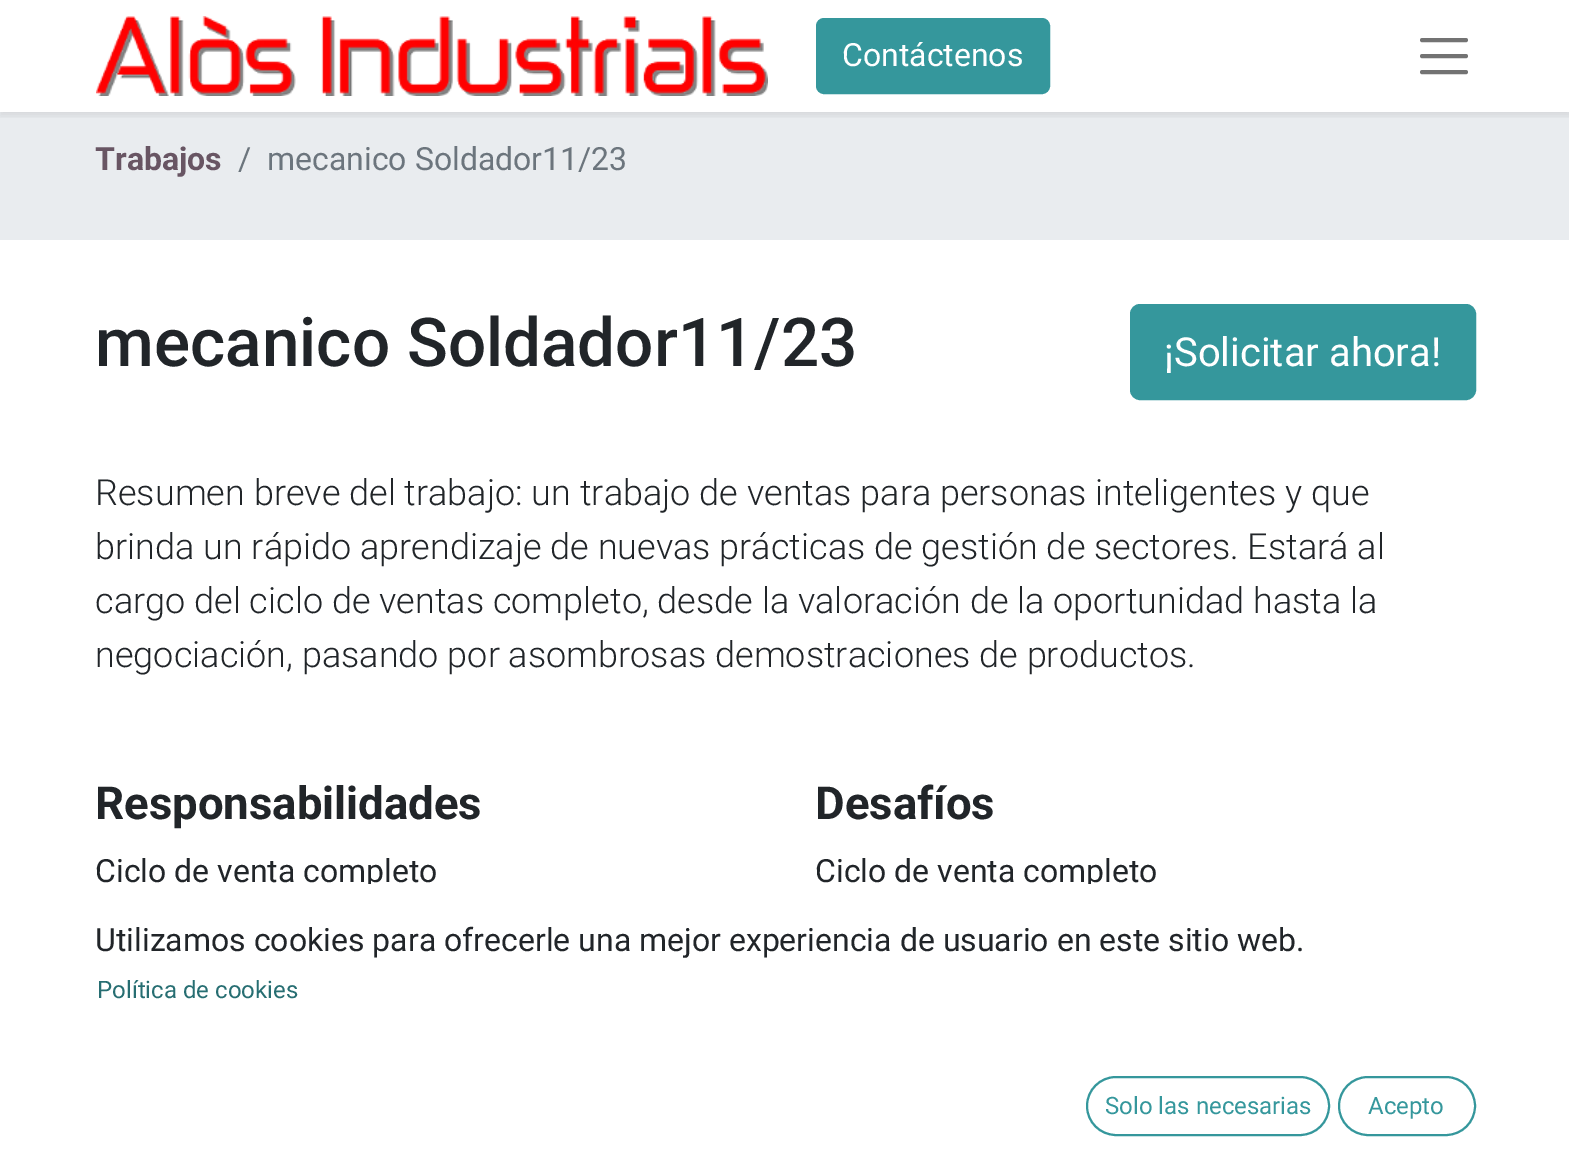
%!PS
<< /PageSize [1569 1167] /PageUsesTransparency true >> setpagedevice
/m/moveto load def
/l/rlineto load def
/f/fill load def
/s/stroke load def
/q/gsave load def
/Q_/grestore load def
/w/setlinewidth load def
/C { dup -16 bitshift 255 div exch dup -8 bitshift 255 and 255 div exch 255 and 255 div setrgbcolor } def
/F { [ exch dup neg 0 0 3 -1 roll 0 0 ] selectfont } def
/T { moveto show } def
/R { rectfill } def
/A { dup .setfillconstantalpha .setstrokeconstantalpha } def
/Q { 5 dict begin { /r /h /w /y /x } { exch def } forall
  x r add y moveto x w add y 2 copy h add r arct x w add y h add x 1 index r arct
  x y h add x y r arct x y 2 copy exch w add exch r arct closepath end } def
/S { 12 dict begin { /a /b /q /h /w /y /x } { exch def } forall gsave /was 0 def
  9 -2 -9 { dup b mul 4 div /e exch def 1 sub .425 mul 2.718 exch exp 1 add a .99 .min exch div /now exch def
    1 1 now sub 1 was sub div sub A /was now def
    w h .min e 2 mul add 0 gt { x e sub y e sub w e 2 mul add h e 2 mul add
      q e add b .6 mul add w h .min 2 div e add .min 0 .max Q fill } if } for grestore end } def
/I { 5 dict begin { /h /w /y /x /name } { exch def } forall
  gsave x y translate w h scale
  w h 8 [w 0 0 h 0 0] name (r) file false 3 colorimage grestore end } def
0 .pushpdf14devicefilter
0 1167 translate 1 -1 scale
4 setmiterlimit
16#FFFFFF C
0 0 1569 1167 R
16#E9ECEF C
0 112 1569 128 R
q
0 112 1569 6 rectclip
16#000000 C
0 4 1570 112 0 4 .07 S
Q_
(1.rgb) 96 16 672 80 I
16#35979C C
817 19 232 74 7 Q q f Q_
2 w
s
/Roboto-Regular 32 F
16#FFFFFF C
(Contáctenos) 842 66 T
16#737373 C
4 w
1 setlinecap
1422 40 m 44 0 l 1422 56 m 44 0 l 1422 72 m 44 0 l s
/Roboto-Bold 32 F
16#685563 C
(Trabajos) 95 170 T
/Roboto-Regular 32 F
16#6C757D C
(/) 238 170 T
(mecanico Soldador11/23) 267 170 T
/Roboto-Medium 67.5 F
16#212529 C
(mecanico Soldador11/23) 95 366 T
16#35979C C
1131 305 344 94 9 Q q f Q_
2 w
0 setlinecap
s
/Roboto-Regular 40 F
16#FFFFFF C
(¡Solicitar ahora!) 1164 366 T
/Roboto-Light 36 F
16#212529 C
(Resumen breve del trabajo: un trabajo de ventas para personas inteligentes y que) 95 505 T
(brinda un rápido aprendizaje de nuevas prácticas de gestión de sectores. Estará al) 95 559 T
(cargo del ciclo de ventas completo, desde la valoración de la oportunidad hasta la) 95 613 T
(negociación, pasando por asombrosas demostraciones de productos.) 95 667 T
/Roboto-Bold 45.5 F
(Responsabilidades) 95 819 T
/Roboto-Regular 32 F
(Ciclo de venta completo) 95 882 T
/Roboto-Bold 45.5 F
(Desafíos) 815 819 T
/Roboto-Regular 32 F
(Ciclo de venta completo) 815 882 T
16#FFFFFF C
368 884 724 5 R
16#212529 C
(Utilizamos cookies para ofrecerle una mejor experiencia de usuario en este sitio web.) 95 951 T
/Roboto-Regular 24 F
16#276E72 C
(Política de cookies) 97 998 T
16#35979C C
1087 1077 242 58 29 Q s
(Solo las necesarias) 1105 1114 T
1339 1077 136 58 29 Q s
(Acepto) 1368 1114 T
.poppdf14devicefilter showpage
